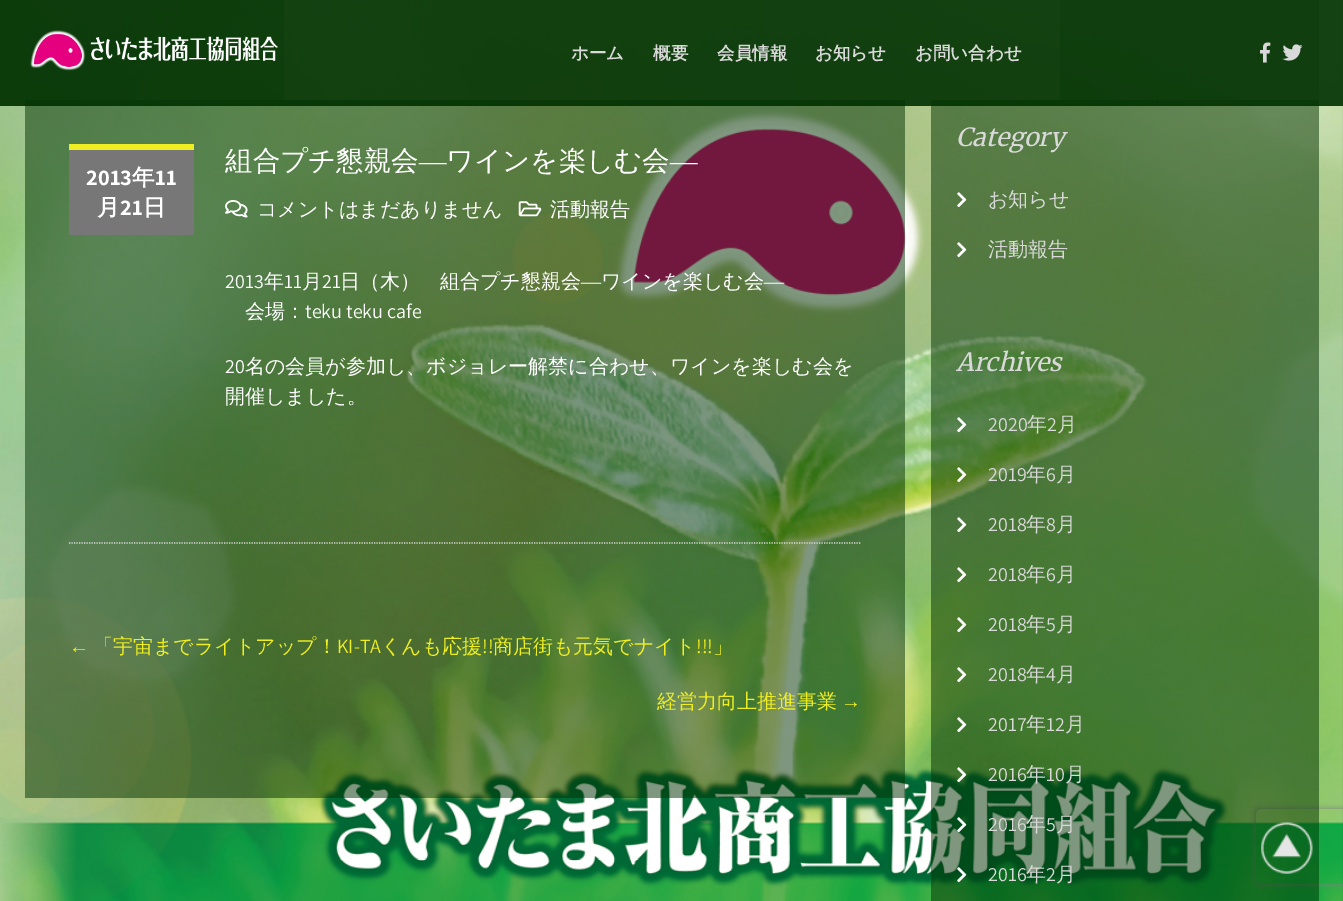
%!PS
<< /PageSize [1343 901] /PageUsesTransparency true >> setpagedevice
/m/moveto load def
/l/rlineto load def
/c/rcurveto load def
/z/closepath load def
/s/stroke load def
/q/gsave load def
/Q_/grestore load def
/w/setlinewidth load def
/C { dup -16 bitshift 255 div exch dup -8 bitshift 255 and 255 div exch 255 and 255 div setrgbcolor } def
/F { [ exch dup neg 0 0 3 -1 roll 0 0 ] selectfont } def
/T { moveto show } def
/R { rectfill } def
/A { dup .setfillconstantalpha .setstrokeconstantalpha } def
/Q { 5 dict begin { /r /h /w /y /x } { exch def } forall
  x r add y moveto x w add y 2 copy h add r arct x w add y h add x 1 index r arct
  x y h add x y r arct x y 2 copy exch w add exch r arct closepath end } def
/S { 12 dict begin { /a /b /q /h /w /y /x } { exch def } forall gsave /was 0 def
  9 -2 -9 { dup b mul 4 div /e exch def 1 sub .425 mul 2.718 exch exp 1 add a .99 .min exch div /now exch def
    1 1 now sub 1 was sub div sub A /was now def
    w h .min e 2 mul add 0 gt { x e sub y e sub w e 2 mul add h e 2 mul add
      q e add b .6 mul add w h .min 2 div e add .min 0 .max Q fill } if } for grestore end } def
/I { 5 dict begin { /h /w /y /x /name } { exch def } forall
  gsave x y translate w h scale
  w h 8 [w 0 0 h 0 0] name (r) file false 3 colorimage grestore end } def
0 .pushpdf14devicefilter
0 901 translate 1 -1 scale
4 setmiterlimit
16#FFFFFF C
0 0 1343 901 R
(1.rgb) 0 0 1343 901 I
0.5 A
16#003000 C
25 100 880 698 R
q
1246 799 m 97 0 l 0 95 l -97 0 l z 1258.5 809 m 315 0 l 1.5 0 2.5 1 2.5 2.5 c 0 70 l 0 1.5 -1 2.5 -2.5 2.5 c -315 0 l -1.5 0 -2.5 -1 -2.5 -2.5 c 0 -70 l 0 -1.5 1 -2.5 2.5 -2.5 c z eoclip newpath
1 A
16#808080 C
1256 809 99 75 2.5 3 1 S
Q_
931 100 388 801 R
0.9 A
25 0 1318 106 R
0.2 A
25 0 259 100 R
1 A
16#0D3C0B C
0 0 25 106 R
(2.rgb) 30 30 248 41 I
/WenQuanYiZenHei-Bold 17.5 F
16#D9D9D9 C
(ホーム) 571 59 T
(概要) 653 59 T
(会員情報) 717 59 T
(お知らせ) 815 59 T
(お問い合わせ) 915 59 T
0.2 A
16#003000 C
1060 0 259 100 R
1 A
(3.rgb) 1260 42 11 21 I
(4.rgb) 1282 44 21 17 I
16#DDDDDD C
1.2 w
[1.25 1.25] 0 setdash
69 543 m 792 0 l s
16#777777 C
69 150 125 85 R
16#EEEE22 C
69 144 125 6 R
/Assistant-Bold 22.5 F
16#FFFFFF C
(2013) 86 185 T
/WenQuanYiZenHei-Bold 22.5 F
(年) 132 185 T
/Assistant-Bold 22.5 F
(11) 155 185 T
/WenQuanYiZenHei-Bold 22.5 F
(月) 97 215 T
/Assistant-Bold 22.5 F
(21) 120 215 T
/WenQuanYiZenHei-Bold 22.5 F
(日) 143 215 T
/WenQuanYiZenHei-Medium 27.5 F
(組合プチ懇親会) 225 170 T
/LiberationSerif-Regular 27.5 F
(―) 419 170 T
/WenQuanYiZenHei-Medium 27.5 F
(ワインを楽しむ会) 446 170 T
/LiberationSerif-Regular 27.5 F
(―) 670 170 T
(5.rgb) 225 200 23 18 I
/WenQuanYiZenHei-Medium 20 F
(コメントはまだありません) 257 216 T
(6.rgb) 518 201 24 16 I
(活動報告) 550 216 T
/Assistant-Regular 20 F
(2013) 225 288 T
/WenQuanYiZenHei-Medium 20 F
(年) 264 288 T
/Assistant-Regular 20 F
(11) 284 288 T
/WenQuanYiZenHei-Medium 20 F
(月) 302 288 T
/Assistant-Regular 20 F
(21) 322 288 T
/WenQuanYiZenHei-Medium 20 F
(日（木）　組合プチ懇親会) 340 288 T
/LiberationSerif-Regular 20 F
(―) 581 288 T
/WenQuanYiZenHei-Medium 20 F
(ワインを楽しむ会) 601 288 T
/LiberationSerif-Regular 20 F
(―) 764 288 T
/WenQuanYiZenHei-Medium 20 F
(会場：) 245 318 T
/Assistant-Regular 20 F
(teku teku cafe) 305 318 T
(20) 225 373 T
/WenQuanYiZenHei-Medium 20 F
(名の会員が参加し、ボジョレー解禁に合わせ、ワインを楽しむ会を) 245 373 T
(開催しました。) 225 403 T
/LiberationSerif-Regular 20 F
16#EEEE22 C
(←) 69 653 T
/WenQuanYiZenHei-Medium 20 F
(「宇宙までライトアップ！) 93 653 T
/Assistant-Regular 20 F
(KI-TA) 337 653 T
/WenQuanYiZenHei-Medium 20 F
(くんも応援) 381 653 T
/Assistant-Regular 20 F
(!!) 482 653 T
/WenQuanYiZenHei-Medium 20 F
(商店街も元気でナイト) 493 653 T
/Assistant-Regular 20 F
(!!!) 696 653 T
/WenQuanYiZenHei-Medium 20 F
(」) 713 653 T
(経営力向上推進事業) 657 708 T
/LiberationSerif-Regular 20 F
(→) 841 708 T
/Merriweather-LightItalic 25 F
16#D9D9D9 C
(Category) 956 146 T
(7.rgb) 957 192 10 16 I
/WenQuanYiZenHei-Medium 20 F
(お知らせ) 988 206 T
(8.rgb) 957 242 10 16 I
(活動報告) 988 256 T
/Merriweather-LightItalic 25 F
(Archives) 956 371 T
(9.rgb) 957 417 10 16 I
/Assistant-Regular 20 F
(2020) 988 431 T
/WenQuanYiZenHei-Medium 20 F
(年) 1027 431 T
/Assistant-Regular 20 F
(2) 1047 431 T
/WenQuanYiZenHei-Medium 20 F
(月) 1057 431 T
(10.rgb) 957 467 10 16 I
/Assistant-Regular 20 F
(2019) 988 481 T
/WenQuanYiZenHei-Medium 20 F
(年) 1026 481 T
/Assistant-Regular 20 F
(6) 1046 481 T
/WenQuanYiZenHei-Medium 20 F
(月) 1056 481 T
(11.rgb) 957 517 10 16 I
/Assistant-Regular 20 F
(2018) 988 531 T
/WenQuanYiZenHei-Medium 20 F
(年) 1026 531 T
/Assistant-Regular 20 F
(8) 1046 531 T
/WenQuanYiZenHei-Medium 20 F
(月) 1056 531 T
(12.rgb) 957 567 10 16 I
/Assistant-Regular 20 F
(2018) 988 581 T
/WenQuanYiZenHei-Medium 20 F
(年) 1026 581 T
/Assistant-Regular 20 F
(6) 1046 581 T
/WenQuanYiZenHei-Medium 20 F
(月) 1056 581 T
(13.rgb) 957 617 10 16 I
/Assistant-Regular 20 F
(2018) 988 631 T
/WenQuanYiZenHei-Medium 20 F
(年) 1026 631 T
/Assistant-Regular 20 F
(5) 1046 631 T
/WenQuanYiZenHei-Medium 20 F
(月) 1056 631 T
(14.rgb) 957 667 10 16 I
/Assistant-Regular 20 F
(2018) 988 681 T
/WenQuanYiZenHei-Medium 20 F
(年) 1026 681 T
/Assistant-Regular 20 F
(4) 1046 681 T
/WenQuanYiZenHei-Medium 20 F
(月) 1056 681 T
(15.rgb) 957 717 10 16 I
/Assistant-Regular 20 F
(2017) 988 731 T
/WenQuanYiZenHei-Medium 20 F
(年) 1026 731 T
/Assistant-Regular 20 F
(12) 1046 731 T
/WenQuanYiZenHei-Medium 20 F
(月) 1065 731 T
(16.rgb) 957 767 10 16 I
/Assistant-Regular 20 F
(2016) 988 781 T
/WenQuanYiZenHei-Medium 20 F
(年) 1026 781 T
/Assistant-Regular 20 F
(10) 1046 781 T
/WenQuanYiZenHei-Medium 20 F
(月) 1065 781 T
(17.rgb) 957 817 10 16 I
/Assistant-Regular 20 F
(2016) 988 831 T
/WenQuanYiZenHei-Medium 20 F
(年) 1026 831 T
/Assistant-Regular 20 F
(5) 1046 831 T
/WenQuanYiZenHei-Medium 20 F
(月) 1056 831 T
(18.rgb) 957 867 10 16 I
/Assistant-Regular 20 F
(2016) 988 881 T
/WenQuanYiZenHei-Medium 20 F
(年) 1026 881 T
/Assistant-Regular 20 F
(2) 1046 881 T
/WenQuanYiZenHei-Medium 20 F
(月) 1056 881 T
(19.rgb) 1261 822 52 52 I
.poppdf14devicefilter showpage
